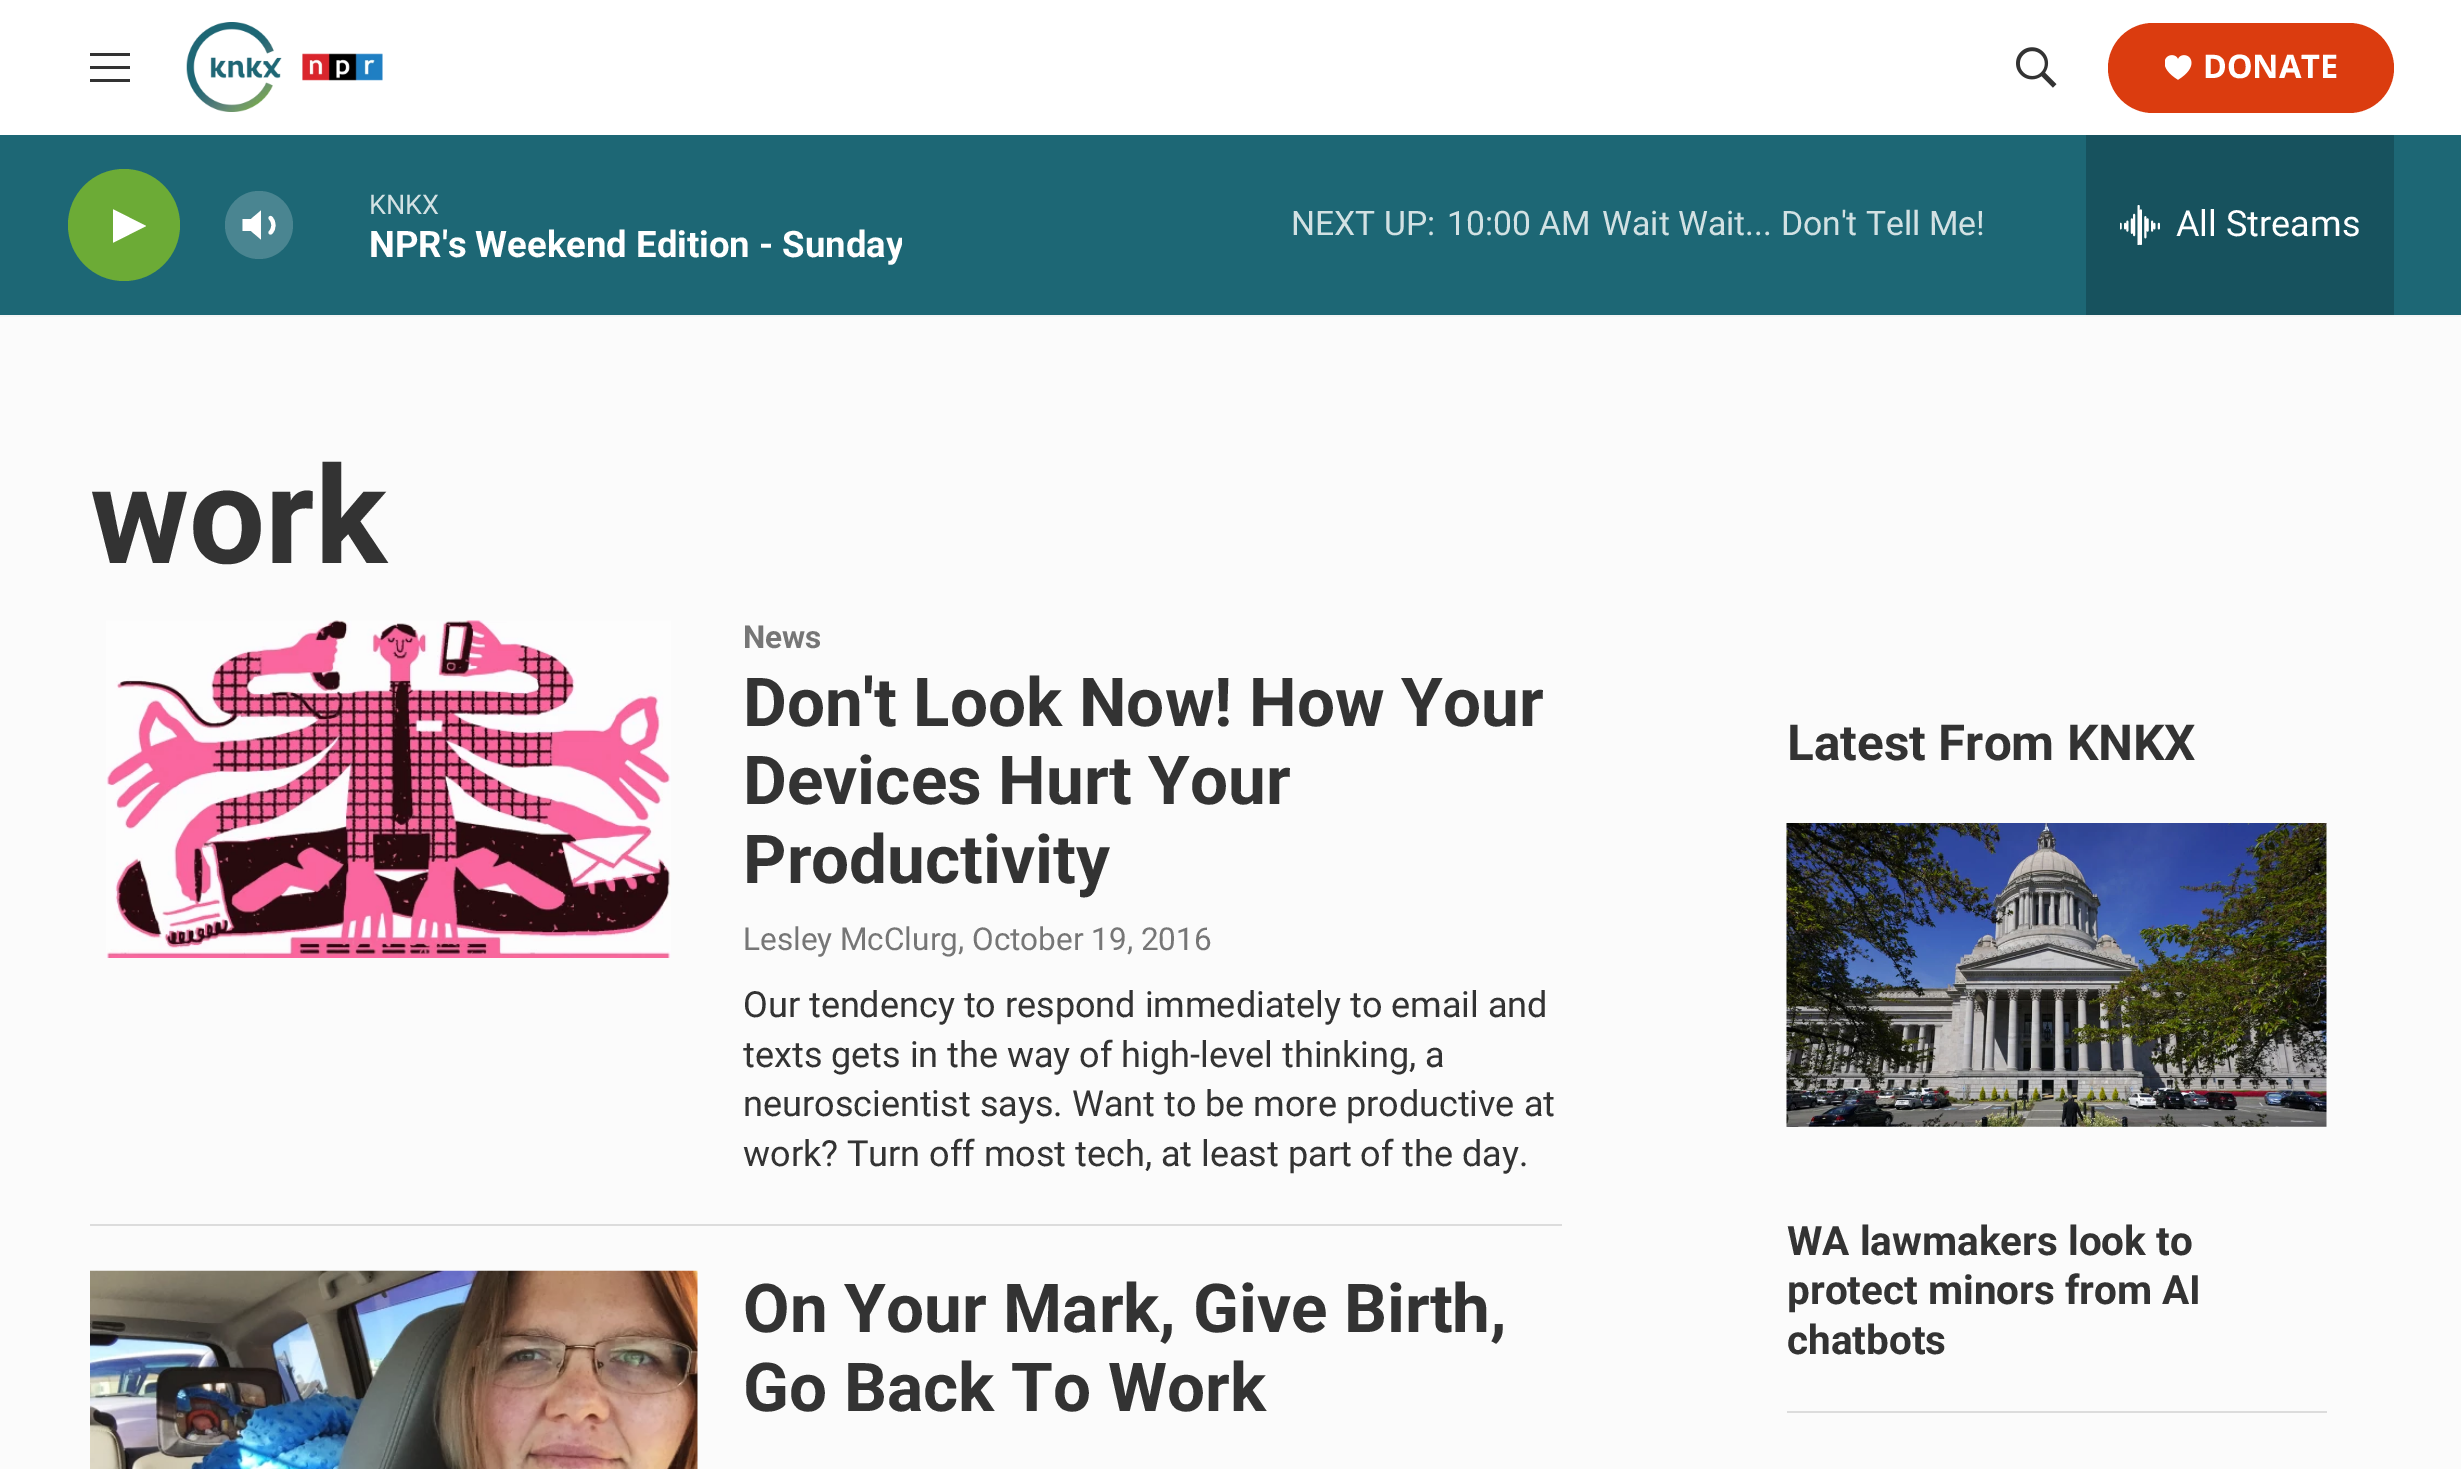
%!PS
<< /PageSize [2461 1469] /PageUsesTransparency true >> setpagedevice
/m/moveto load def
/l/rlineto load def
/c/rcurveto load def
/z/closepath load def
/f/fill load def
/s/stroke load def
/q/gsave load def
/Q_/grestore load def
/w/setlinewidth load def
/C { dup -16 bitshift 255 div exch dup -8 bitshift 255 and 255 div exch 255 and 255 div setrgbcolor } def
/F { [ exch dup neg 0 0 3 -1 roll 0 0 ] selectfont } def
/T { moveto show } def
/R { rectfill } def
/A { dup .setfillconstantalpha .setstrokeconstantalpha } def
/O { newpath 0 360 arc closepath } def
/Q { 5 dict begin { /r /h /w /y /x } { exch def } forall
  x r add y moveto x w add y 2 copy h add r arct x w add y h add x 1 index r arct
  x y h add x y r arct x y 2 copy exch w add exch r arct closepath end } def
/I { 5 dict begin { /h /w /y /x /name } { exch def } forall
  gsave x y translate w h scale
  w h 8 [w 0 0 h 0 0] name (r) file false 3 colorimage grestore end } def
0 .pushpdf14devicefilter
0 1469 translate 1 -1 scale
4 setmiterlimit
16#FBFBFB C
0 0 2461 1469 R
16#FFFFFF C
0 0 2461 135 R
16#F5F5F5 C
0 315 2461 2 R
16#333333 C
90 69 m 0 -3 l 40 0 l 0 3 l z 90 56 m 0 -3 l 40 0 l 0 3 l z 90 82 m 0 -3 l 40 0 l 0 3 l z eofill
(1.rgb) 186 22 197 90 I
(2.rgb) 2016 47 41 41 I
16#DB3C0F C
2108 23 286 90 45 Q f
(3.rgb) 2165 55 27 25 I
/NotoSans-Bold 32.5 F
16#FFFFFF C
(DONATE) 2203 78 T
16#1D6775 C
0 135 2461 180 R
16#6CAB36 C
124 225 56 O f
q
113 205 33 43 rectclip
16#FFFFFF C
112.5 209 m 33.5 17 l -33.5 17 l z f
Q_
16#FFFFFF C
261 210.5 m -10 8.5 l -8.5 0 l 0 12 l 8.5 0 l 10 8.5 l z f
4.1 w
1 setlinecap
1 setlinejoin
270.5 218 m 4 4 4 10.5 0 14.5 c s
0.2 A
259 225 34 O f
/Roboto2-Regular 27 F
1 A
16#D2E1E3 C
(KNKX) 369 214 T
q
369 225 533 41 rectclip
/Roboto2-Bold 36.5 F
16#FFFFFF C
(NPR's Weekend Edition - Sunday) 369 257 T
Q_
/Roboto2-Regular 33.75 F
(NEXT UP:) 1291 235 T
(10:00 AM) 1447 235 T
(Wait Wait... Don't Tell Me!) 1602 235 T
16#17525E C
2086 135 308 180 R
(4.rgb) 2120 205 40 40 I
/Roboto2-Regular 36 F
16#FFFFFF C
(All Streams) 2176 236 T
/Roboto-Bold 135 F
16#333333 C
(work) 90 563 T
16#DCDCDC C
90 1224 1472 2 R
(5.rgb) 106 620 565 338 I
/Roboto2-Bold 31.5 F
16#767676 C
(News) 743 648 T
/Roboto2-Bold 67.5 F
16#333333 C
(Don't Look Now! How Your) 743 726 T
(Devices Hurt Your) 743 804 T
(Productivity) 743 883 T
/Roboto-Regular 31.5 F
16#767676 C
(Lesley McClurg, October 19, 2016) 743 950 T
/Roboto2-Regular 36 F
16#333333 C
(Our tendency to respond immediately to email and) 743 1017 T
(texts gets in the way of high-level thinking, a) 743 1067 T
(neuroscientist says. Want to be more productive at) 743 1116 T
(work? Turn off most tech, at least part of the day.) 743 1166 T
(6.rgb) 90 1270 608 199 I
/Roboto2-Bold 67.5 F
(On Your Mark, Give Birth,) 743 1332 T
(Go Back To Work) 743 1411 T
/Roboto-Bold 49.5 F
(Latest From KNKX) 1787 760 T
(7.rgb) 1786 823 541 304 I
16#DCDCDC C
1787 1411 540 2 R
/Roboto-Bold 40.5 F
16#333333 C
(WA lawmakers look to) 1787 1255 T
(protect minors from AI) 1787 1304 T
(chatbots) 1787 1354 T
.poppdf14devicefilter showpage
